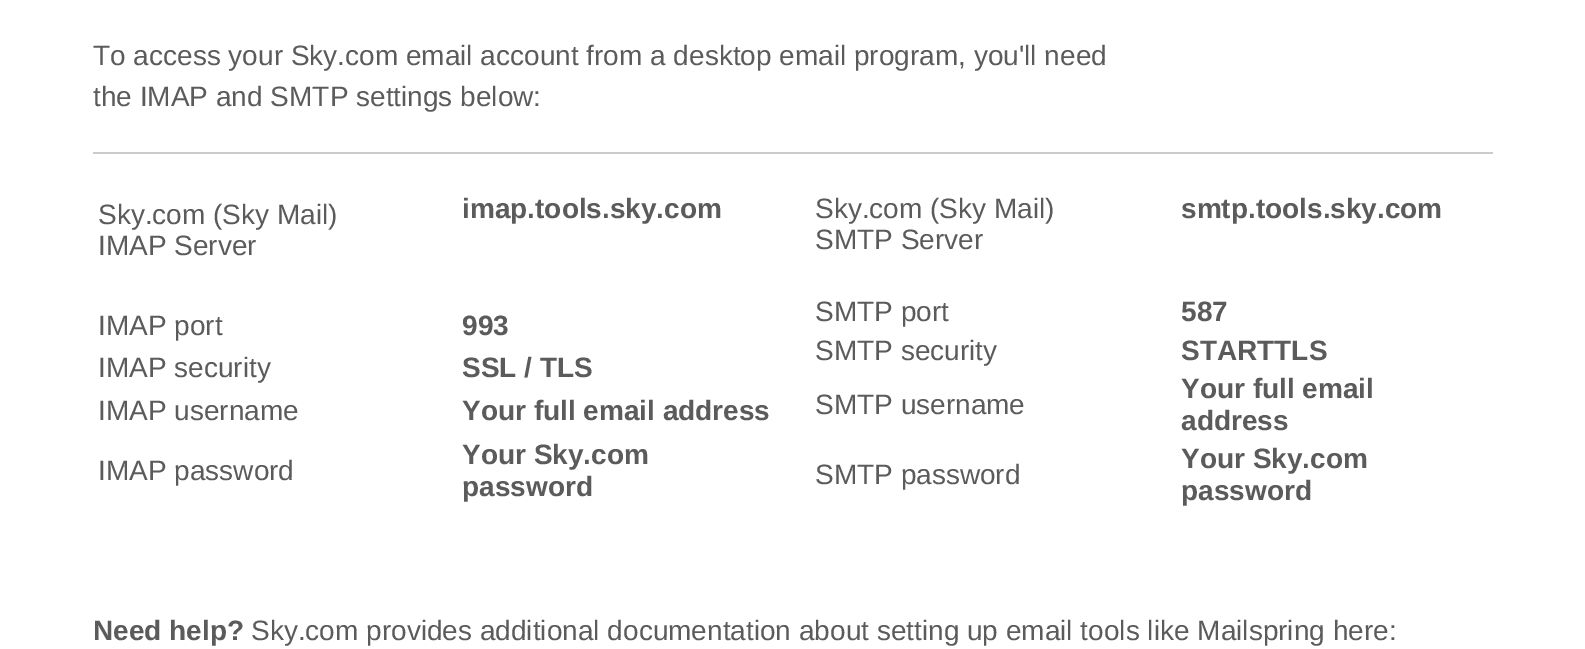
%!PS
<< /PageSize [1585 649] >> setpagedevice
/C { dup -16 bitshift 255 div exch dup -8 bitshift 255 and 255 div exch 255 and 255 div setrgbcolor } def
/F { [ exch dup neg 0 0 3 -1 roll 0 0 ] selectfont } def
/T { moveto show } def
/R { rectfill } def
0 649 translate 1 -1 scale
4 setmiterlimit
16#FFFFFF C
0 0 1585 649 R
/LiberationSans-Regular 28 F
16#5B5B5B C
(To access your Sky.com email account from a desktop email program, you'll need) 93 65 T
(the IMAP and SMTP settings below:) 93 106 T
16#CCCCCC C
93 152 1400 2 R
16#5B5B5B C
(Sky.com \(Sky Mail\)) 98 224 T
(IMAP Server) 98 255 T
/LiberationSans-Bold 28 F
(imap.tools.sky.com) 462 218 T
/LiberationSans-Regular 28 F
(IMAP port) 98 335 T
/LiberationSans-Bold 28 F
(993) 462 335 T
/LiberationSans-Regular 28 F
(IMAP security) 98 377 T
/LiberationSans-Bold 28 F
(SSL / TLS) 462 377 T
/LiberationSans-Regular 28 F
(IMAP username) 98 420 T
/LiberationSans-Bold 28 F
(Your full email address) 462 420 T
/LiberationSans-Regular 28 F
(IMAP password) 98 480 T
/LiberationSans-Bold 28 F
(Your Sky.com) 462 464 T
(password) 462 496 T
/LiberationSans-Regular 28 F
(Sky.com \(Sky Mail\)) 815 218 T
(SMTP Server) 815 249 T
/LiberationSans-Bold 28 F
(smtp.tools.sky.com) 1181 218 T
/LiberationSans-Regular 28 F
(SMTP port) 815 321 T
/LiberationSans-Bold 28 F
(587) 1181 321 T
/LiberationSans-Regular 28 F
(SMTP security) 815 360 T
/LiberationSans-Bold 28 F
(STARTTLS) 1181 360 T
/LiberationSans-Regular 28 F
(SMTP username) 815 414 T
/LiberationSans-Bold 28 F
(Your full email) 1181 398 T
(address) 1181 430 T
/LiberationSans-Regular 28 F
(SMTP password) 815 484 T
/LiberationSans-Bold 28 F
(Your Sky.com) 1181 468 T
(password) 1181 500 T
(Need help?) 93 640 T
/LiberationSans-Regular 28 F
(Sky.com provides additional documentation about setting up email tools like Mailspring here:) 251 640 T
showpage
